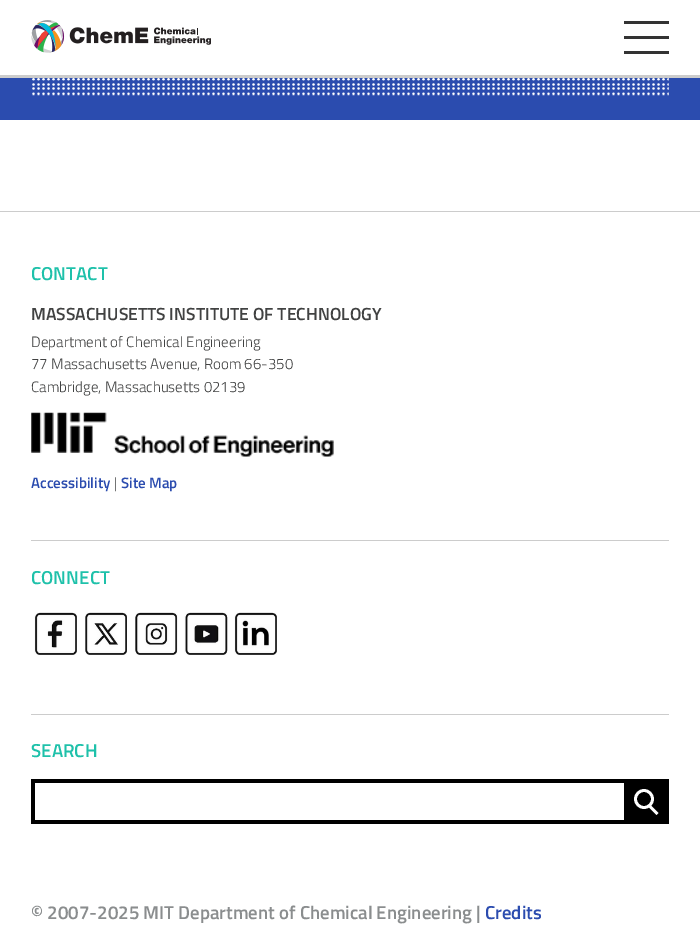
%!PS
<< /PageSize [700 946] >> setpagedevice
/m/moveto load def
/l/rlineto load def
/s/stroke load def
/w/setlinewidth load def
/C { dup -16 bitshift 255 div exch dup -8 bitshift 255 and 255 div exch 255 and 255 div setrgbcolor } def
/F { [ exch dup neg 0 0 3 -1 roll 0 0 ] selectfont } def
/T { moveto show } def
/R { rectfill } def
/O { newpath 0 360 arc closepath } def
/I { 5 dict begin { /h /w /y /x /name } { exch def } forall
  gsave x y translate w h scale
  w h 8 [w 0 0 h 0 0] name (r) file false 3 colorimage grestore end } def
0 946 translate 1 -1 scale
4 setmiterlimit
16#FFFFFF C
0 0 700 946 R
16#CCCCCC C
0 75 700 3 R
(1.rgb) 31 20 180 33 I
16#333333 C
624 21 45 3 R
624 36 45 3 R
624 51 45 3 R
16#2B4CAF C
0 78 700 42 R
(2.rgb) 32 78 637 18 I
16#CCCCCC C
0 211 700 1 R
31 540 638 1 R
/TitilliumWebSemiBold-SemiBold 18.75 F
16#1EC1AA C
(CONTACT) 31 280 T
/TitilliumWebSemiBold-SemiBold 17.5 F
16#414242 C
(MASSACHUSETTS INSTITUTE OF TECHNOLOGY) 31 320 T
/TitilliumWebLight-Light 15 F
(Department of Chemical Engineering) 31 347 T
(77 Massachusetts Avenue, Room 66-350) 31 369 T
(Cambridge, Massachusetts 02139) 31 392 T
(3.rgb) 31 412 303 45 I
/TitilliumWebSemiBold-SemiBold 15 F
16#2B4CAF C
(Accessibility) 31 488 T
/TitilliumWebLight-Light 15 F
16#414242 C
(|) 114 488 T
/TitilliumWebSemiBold-SemiBold 15 F
16#2B4CAF C
(Site Map) 121 488 T
16#CCCCCC C
31 714 638 1 R
/TitilliumWebSemiBold-SemiBold 18.75 F
16#1EC1AA C
(CONNECT) 31 584 T
(4.rgb) 34 612 43 43 I
(5.rgb) 85 612 42 43 I
(6.rgb) 135 612 43 43 I
(7.rgb) 184 612 44 43 I
(8.rgb) 234 612 43 43 I
(SEARCH) 31 757 T
16#000000 C
31 779 593 4 R
31 820 593 4 R
31 779 4 45 R
624 779 45 45 R
16#FFFFFF C
2.8 w
644 799 8.5 O s
648.5 805 m 9 9 l s
16#8A8D8E C
(© 2007-2025 MIT Department of Chemical Engineering |) 31 919 T
16#2B4CAF C
(Credits) 485 919 T
showpage
